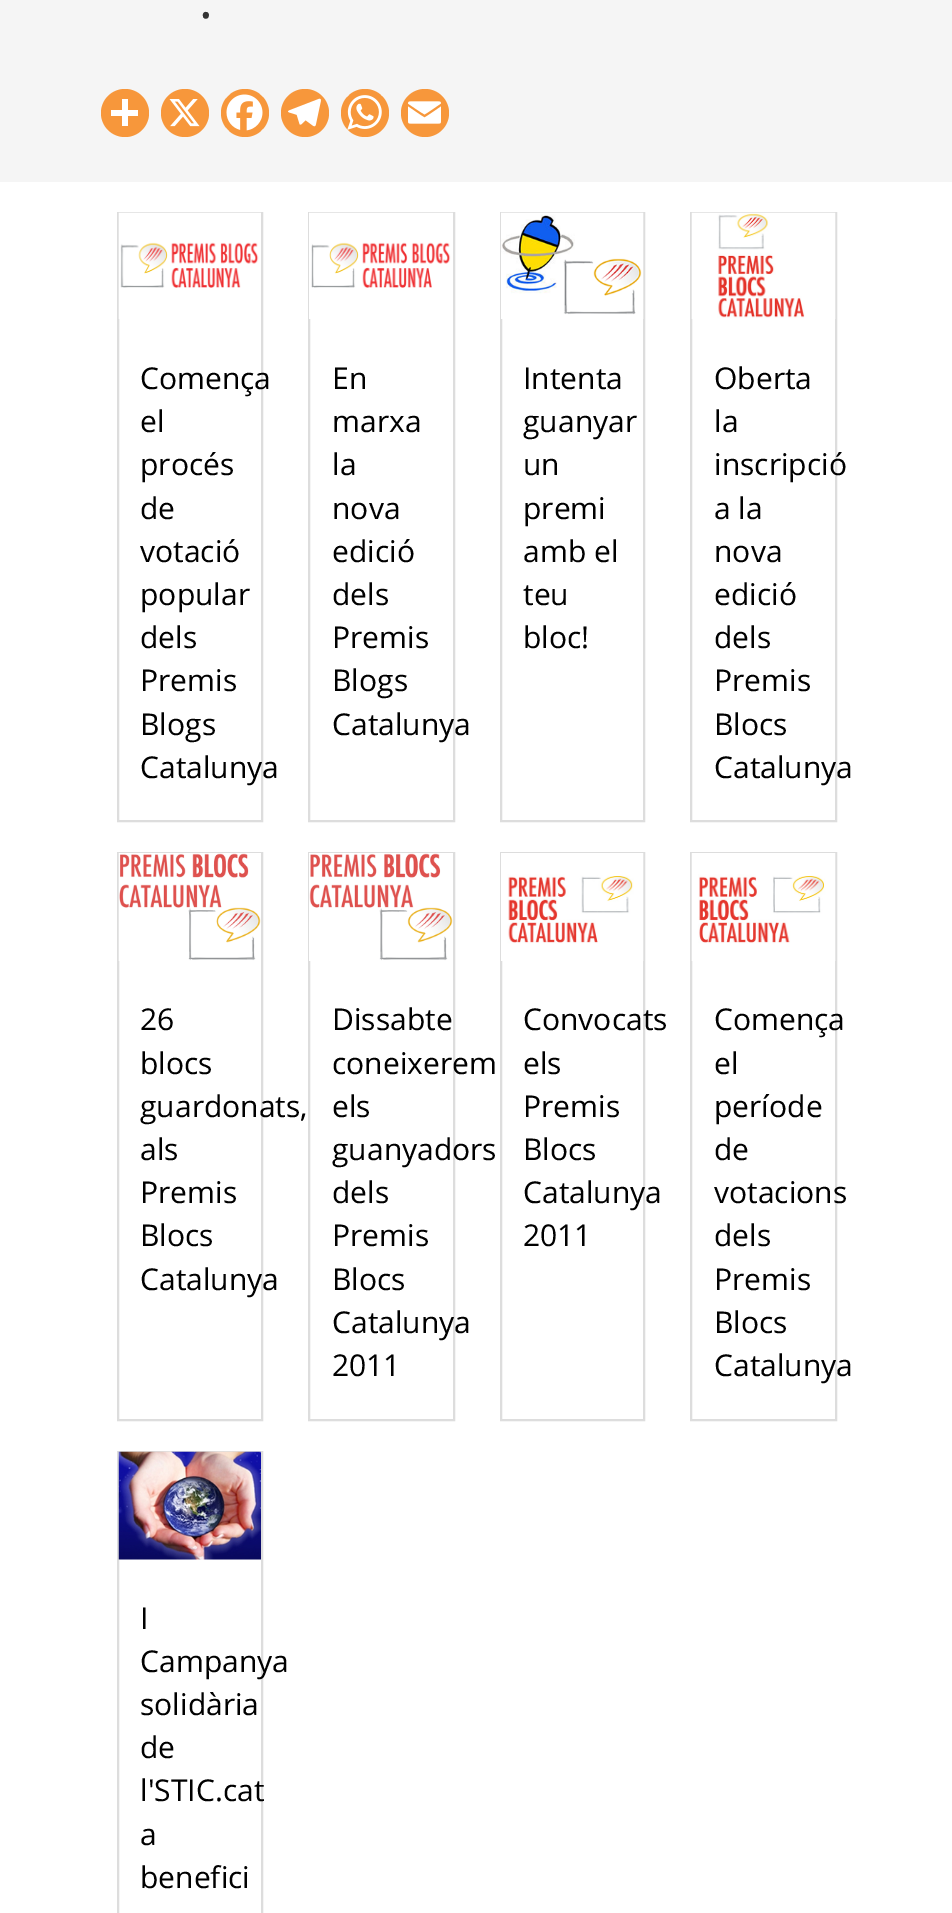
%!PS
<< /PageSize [952 1913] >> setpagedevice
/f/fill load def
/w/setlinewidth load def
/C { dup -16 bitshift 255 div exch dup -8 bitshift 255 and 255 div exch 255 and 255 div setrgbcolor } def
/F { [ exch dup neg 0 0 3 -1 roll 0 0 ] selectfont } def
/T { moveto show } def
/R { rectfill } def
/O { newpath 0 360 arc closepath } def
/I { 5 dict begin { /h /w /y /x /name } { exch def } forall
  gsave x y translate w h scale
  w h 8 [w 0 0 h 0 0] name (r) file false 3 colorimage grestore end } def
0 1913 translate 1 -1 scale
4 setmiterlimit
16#FFFFFF C
0 0 952 1913 R
16#F5F5F5 C
0 0 952 182 R
/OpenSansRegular-Regular 52 F
16#333333 C
(.) 199 18 T
16#F7973B C
125 113 24 O f
16#FFFFFF C
122 99 6 27 R
111 110 27 6 R
16#F7973B C
185 113 24 O f
(1.rgb) 169 99 31 28 I
245 113 24 O f
(2.rgb) 226 94 37 37 I
305 113 24 O f
(3.rgb) 288 98 33 29 I
365 113 24 O f
(4.rgb) 347 95 35 35 I
425 113 24 O f
(5.rgb) 408 101 33 23 I
16#DDDDDD C
2 w
118 213 144 608 rectstroke
(6.rgb) 118 212 143 107 I
/OpenSansRegular-Regular 30 F
16#000000 C
(Comença) 140 389 T
(el) 140 432 T
(procés) 140 475 T
(de) 140 519 T
(votació) 140 562 T
(popular) 140 605 T
(dels) 140 648 T
(Premis) 140 691 T
(Blogs) 140 735 T
(Catalunya) 140 778 T
16#DDDDDD C
309 213 145 608 rectstroke
(7.rgb) 309 212 144 107 I
16#000000 C
(En) 332 389 T
(marxa) 332 432 T
(la) 332 475 T
(nova) 332 519 T
(edició) 332 562 T
(dels) 332 605 T
(Premis) 332 648 T
(Blogs) 332 691 T
(Catalunya) 332 735 T
16#DDDDDD C
501 213 143 608 rectstroke
(8.rgb) 501 212 143 107 I
16#000000 C
(Intenta) 523 389 T
(guanyar) 523 432 T
(un) 523 475 T
(premi) 523 519 T
(amb el) 523 562 T
(teu) 523 605 T
(bloc!) 523 648 T
16#DDDDDD C
691 213 145 608 rectstroke
(9.rgb) 691 212 145 107 I
16#000000 C
(Oberta) 714 389 T
(la) 714 432 T
(inscripció) 714 475 T
(a la) 714 519 T
(nova) 714 562 T
(edició) 714 605 T
(dels) 714 648 T
(Premis) 714 691 T
(Blocs) 714 735 T
(Catalunya) 714 778 T
16#DDDDDD C
118 853 144 567 rectstroke
(10.rgb) 118 853 143 108 I
16#000000 C
(26) 140 1030 T
(blocs) 140 1074 T
(guardonats,) 140 1117 T
(als) 140 1160 T
(Premis) 140 1203 T
(Blocs) 140 1246 T
(Catalunya) 140 1290 T
16#DDDDDD C
309 853 145 567 rectstroke
(11.rgb) 309 853 144 108 I
16#000000 C
(Dissabte) 332 1030 T
(coneixerem) 332 1074 T
(els) 332 1117 T
(guanyadors) 332 1160 T
(dels) 332 1203 T
(Premis) 332 1246 T
(Blocs) 332 1290 T
(Catalunya) 332 1333 T
(2011) 332 1376 T
16#DDDDDD C
501 853 143 567 rectstroke
(12.rgb) 501 853 143 108 I
16#000000 C
(Convocats) 523 1030 T
(els) 523 1074 T
(Premis) 523 1117 T
(Blocs) 523 1160 T
(Catalunya) 523 1203 T
(2011) 523 1246 T
16#DDDDDD C
691 853 145 567 rectstroke
(13.rgb) 691 853 145 108 I
16#000000 C
(Comença) 714 1030 T
(el) 714 1074 T
(període) 714 1117 T
(de) 714 1160 T
(votacions) 714 1203 T
(dels) 714 1246 T
(Premis) 714 1290 T
(Blocs) 714 1333 T
(Catalunya) 714 1376 T
16#DDDDDD C
118 1452 144 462 rectstroke
(14.rgb) 118 1451 143 109 I
16#000000 C
(I) 140 1629 T
(Campanya) 140 1672 T
(solidària) 140 1715 T
(de) 140 1758 T
(l'STIC.cat) 140 1801 T
(a) 140 1845 T
(benefici) 140 1888 T
showpage
